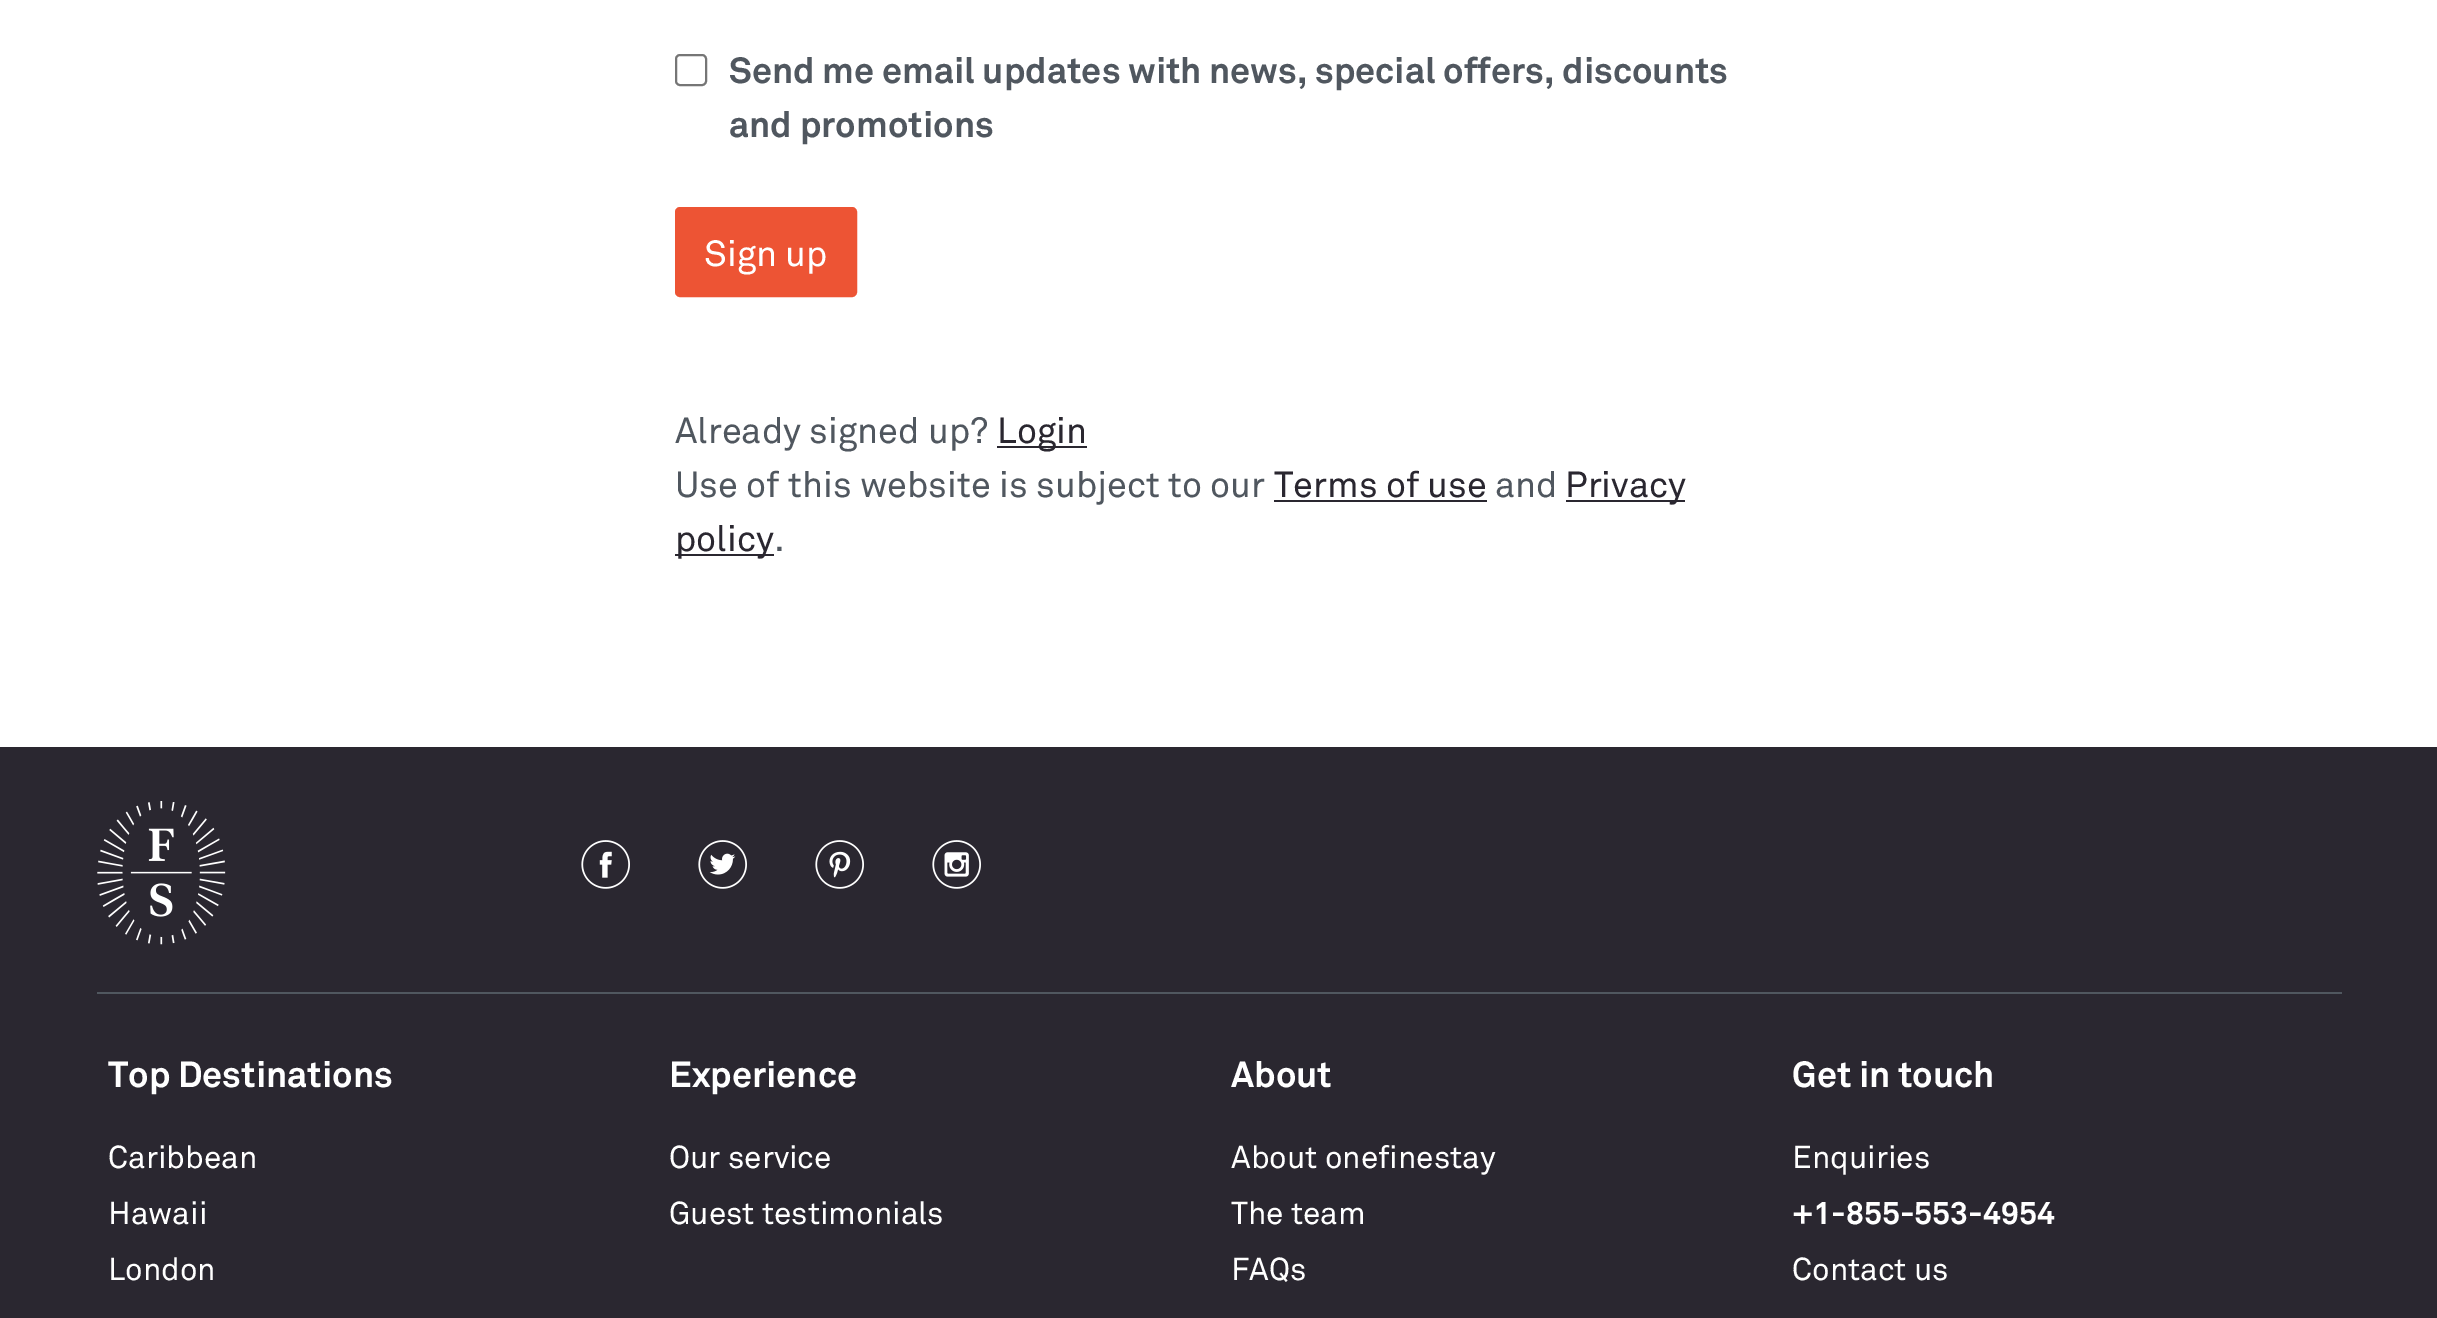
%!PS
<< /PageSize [2437 1318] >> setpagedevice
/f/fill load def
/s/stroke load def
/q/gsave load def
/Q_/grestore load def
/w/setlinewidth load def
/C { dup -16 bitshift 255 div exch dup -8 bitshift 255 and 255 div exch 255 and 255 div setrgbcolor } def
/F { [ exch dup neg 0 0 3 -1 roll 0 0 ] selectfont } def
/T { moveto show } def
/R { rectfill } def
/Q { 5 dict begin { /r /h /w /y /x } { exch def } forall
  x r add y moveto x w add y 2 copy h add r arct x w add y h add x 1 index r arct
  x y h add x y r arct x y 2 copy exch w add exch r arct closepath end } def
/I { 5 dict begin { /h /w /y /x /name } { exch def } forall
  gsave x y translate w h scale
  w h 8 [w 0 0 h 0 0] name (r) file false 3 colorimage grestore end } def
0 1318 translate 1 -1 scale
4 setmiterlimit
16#FFFFFF C
0 0 2437 1318 R
16#767676 C
2 w
676 55 30 30 4 Q s
/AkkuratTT-Bold 36 F
16#50575F C
(Send me email updates with news, special offers, discounts) 729 83 T
(and promotions) 729 137 T
16#ED5434 C
676 208 180 88 4 Q q f Q_
s
/AkkuratTT-Regular 36 F
16#FFFFFF C
(Sign up) 704 266 T
16#50575F C
(Already signed up?) 675 443 T
16#2A2730 C
997 446 90 2 R
(Login) 997 443 T
16#50575F C
(Use of this website is subject to our) 675 497 T
16#2A2730 C
(Terms of use) 1274 497 T
1274 500 213 2 R
16#50575F C
(and) 1495 497 T
16#2A2730 C
1566 500 119 2 R
(Privacy) 1565 497 T
675 554 99 2 R
(policy) 675 551 T
16#50575F C
(.) 774 551 T
16#2A2730 C
0 747 2437 571 R
16#50575F C
97 992 2245 2 R
(1.rgb) 97 801 129 144 I
(2.rgb) 581 840 49 49 I
(3.rgb) 698 840 49 49 I
(4.rgb) 815 840 49 49 I
(5.rgb) 932 840 49 49 I
/AkkuratTT-Bold 36 F
16#FFFFFF C
(Top Destinations) 108 1087 T
/AkkuratTT-Regular 31.5 F
(Caribbean) 108 1168 T
(Hawaii) 108 1224 T
(London) 108 1280 T
/AkkuratTT-Bold 36 F
(Experience) 669 1087 T
/AkkuratTT-Regular 31.5 F
(Our service) 669 1168 T
(Guest testimonials) 669 1224 T
/AkkuratTT-Bold 36 F
(About) 1231 1087 T
/AkkuratTT-Regular 31.5 F
(About onefinestay) 1231 1168 T
(The team) 1231 1224 T
(FAQs) 1231 1280 T
/AkkuratTT-Bold 36 F
(Get in touch) 1792 1087 T
/AkkuratTT-Regular 31.5 F
(Enquiries) 1792 1168 T
/AkkuratTT-Bold 31.5 F
(+1-855-553-4954) 1792 1224 T
/AkkuratTT-Regular 31.5 F
(Contact us) 1792 1280 T
showpage
